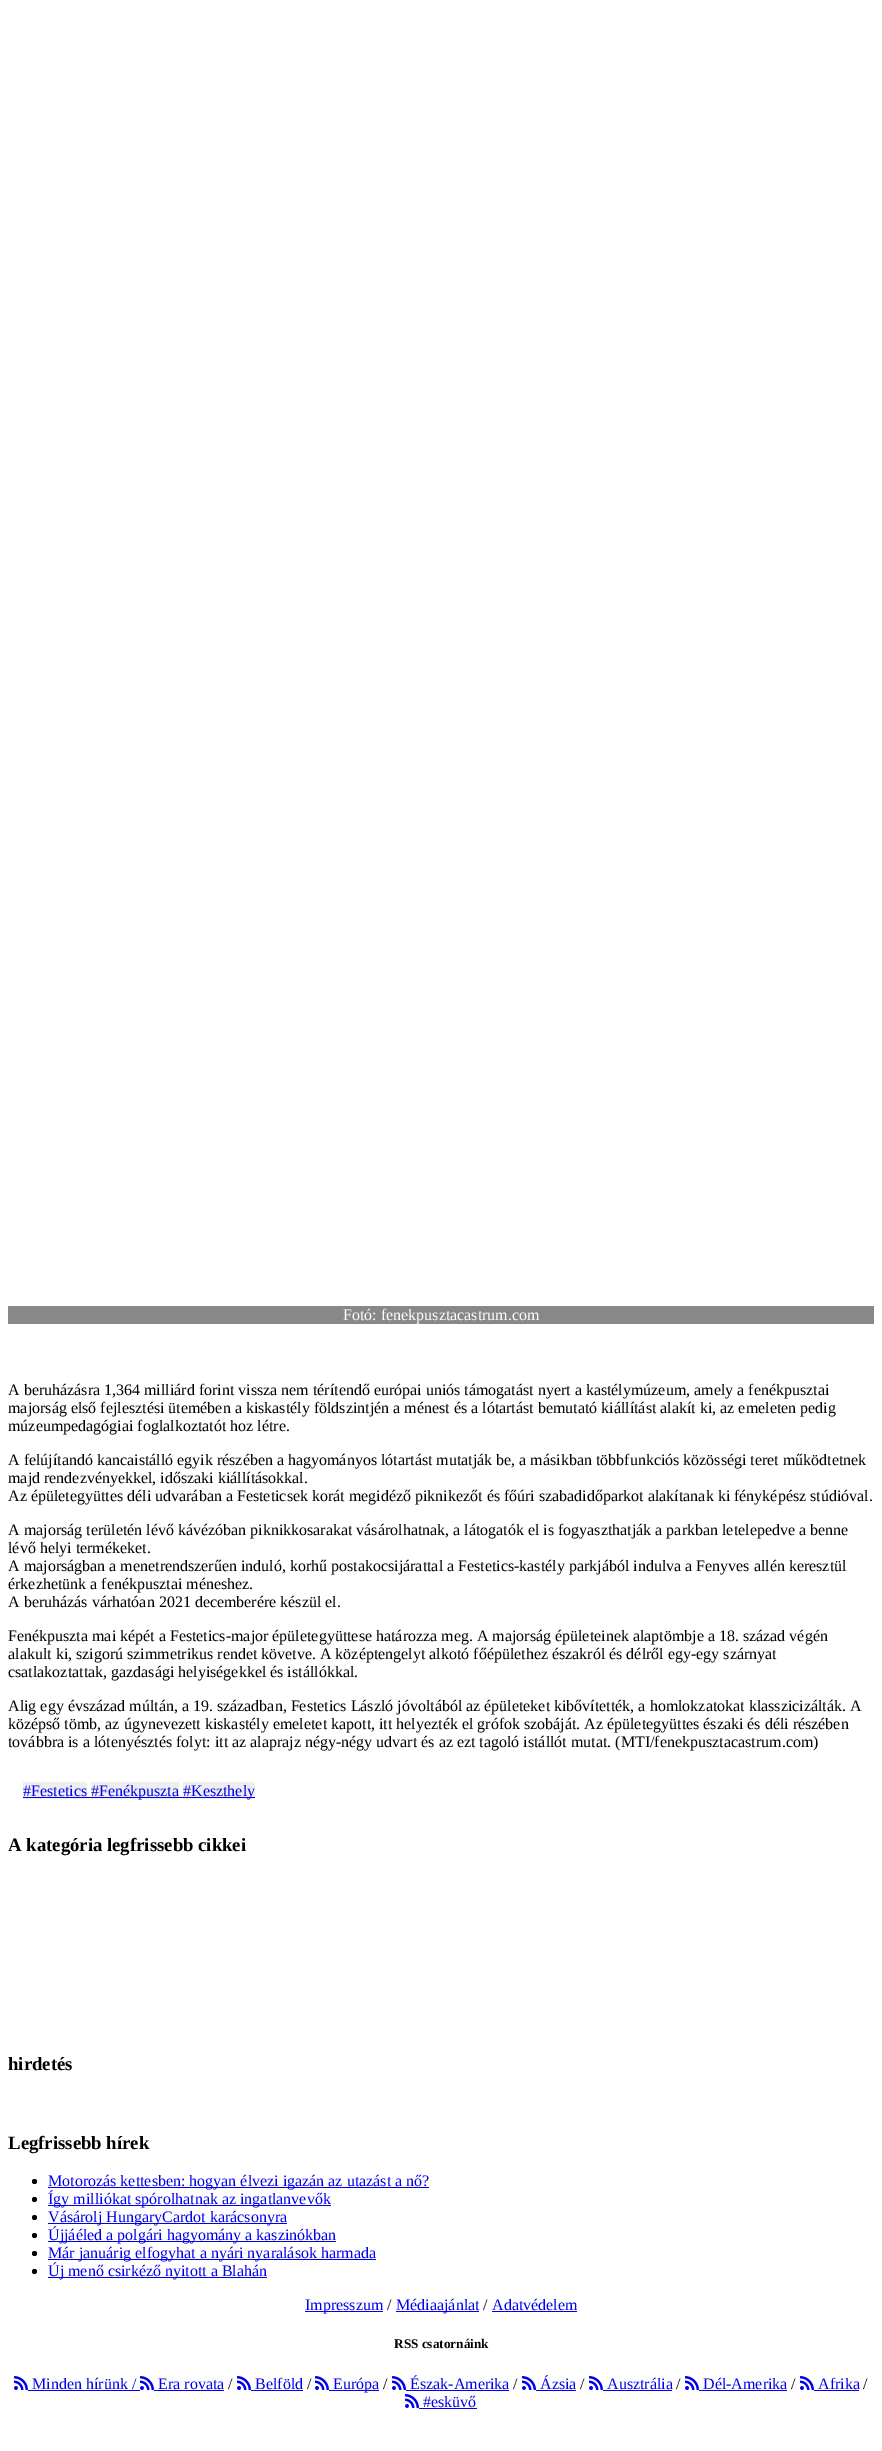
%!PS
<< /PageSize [882 2451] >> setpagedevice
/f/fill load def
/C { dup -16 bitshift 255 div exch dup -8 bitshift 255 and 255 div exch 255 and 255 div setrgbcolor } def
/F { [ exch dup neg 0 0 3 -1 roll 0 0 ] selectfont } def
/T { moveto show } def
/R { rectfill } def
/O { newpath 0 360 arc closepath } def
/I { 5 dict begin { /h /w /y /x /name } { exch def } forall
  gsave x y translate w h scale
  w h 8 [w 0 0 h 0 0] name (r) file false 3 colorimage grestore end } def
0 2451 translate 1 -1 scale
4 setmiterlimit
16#FFFFFF C
0 0 882 2451 R
16#888888 C
8 1306 866 18 R
/LiberationSerif-Regular 16 F
16#FFFFFF C
(Fotó: fenekpusztacastrum.com) 343 1320 T
16#000000 C
(A beruházásra 1,364 milliárd forint vissza nem térítendő európai uniós támogatást nyert a kastélymúzeum, amely a fenékpusztai) 8 1395 T
(majorság első fejlesztési ütemében a kiskastély földszintjén a ménest és a lótartást bemutató kiállítást alakít ki, az emeleten pedig) 8 1413 T
(múzeumpedagógiai foglalkoztatót hoz létre.) 8 1431 T
(A felújítandó kancaistálló egyik részében a hagyományos lótartást mutatják be, a másikban többfunkciós közösségi teret működtetnek) 8 1465 T
(majd rendezvényekkel, időszaki kiállításokkal.) 8 1483 T
(Az épületegyüttes déli udvarában a Festeticsek korát megidéző piknikezőt és főúri szabadidőparkot alakítanak ki fényképész stúdióval.) 8 1501 T
(A majorság területén lévő kávézóban piknikkosarakat vásárolhatnak, a látogatók el is fogyaszthatják a parkban letelepedve a benne) 8 1535 T
(lévő helyi termékeket.) 8 1553 T
(A majorságban a menetrendszerűen induló, korhű postakocsijárattal a Festetics-kastély parkjából indulva a Fenyves allén keresztül) 8 1571 T
(érkezhetünk a fenékpusztai méneshez.) 8 1589 T
(A beruházás várhatóan 2021 decemberére készül el.) 8 1607 T
(Fenékpuszta mai képét a Festetics-major épületegyüttese határozza meg. A majorság épületeinek alaptömbje a 18. század végén) 8 1641 T
(alakult ki, szigorú szimmetrikus rendet követve. A középtengelyt alkotó főépülethez északról és délről egy-egy szárnyat) 8 1659 T
(csatlakoztattak, gazdasági helyiségekkel és istállókkal.) 8 1677 T
(Alig egy évszázad múltán, a 19. században, Festetics László jóvoltából az épületeket kibővítették, a homlokzatokat klasszicizálták. A) 8 1711 T
(középső tömb, az úgynevezett kiskastély emeletet kapott, itt helyezték el grófok szobáját. Az épületegyüttes északi és déli részében) 8 1729 T
(továbbra is a lótenyésztés folyt: itt az alaprajz négy-négy udvart és az ezt tagoló istállót mutat. \(MTI/fenekpusztacastrum.com\)) 8 1747 T
16#EEEEEE C
23 1782 64 17 R
16#0000EE C
(#Festetics) 23 1796 T
23 1797 68 1 R
16#EEEEEE C
91 1782 88 17 R
16#0000EE C
91 1797 92 1 R
(#Fenékpuszta) 91 1796 T
16#EEEEEE C
183 1782 72 17 R
16#0000EE C
183 1797 72 1 R
(#Keszthely) 183 1796 T
/LiberationSerif-Bold 18.75 F
16#000000 C
(A kategória legfrissebb cikkei) 8 1851 T
(hirdetés) 8 2070 T
(Legfrissebb hírek) 8 2149 T
34.5 2181.5 2.5 O f
16#0000EE C
48 2187 381 1 R
/LiberationSerif-Regular 16 F
(Motorozás kettesben: hogyan élvezi igazán az utazást a nő?) 48 2186 T
16#000000 C
34.5 2199.5 2.5 O f
16#0000EE C
48 2205 283 1 R
(Így milliókat spórolhatnak az ingatlanvevők) 48 2204 T
16#000000 C
34.5 2217.5 2.5 O f
16#0000EE C
48 2223 239 1 R
(Vásárolj HungaryCardot karácsonyra) 48 2222 T
16#000000 C
34.5 2235.5 2.5 O f
16#0000EE C
48 2241 288 1 R
(Újjáéled a polgári hagyomány a kaszinókban) 48 2240 T
16#000000 C
34.5 2253.5 2.5 O f
16#0000EE C
48 2259 328 1 R
(Már januárig elfogyhat a nyári nyaralások harmada) 48 2258 T
16#000000 C
34.5 2271.5 2.5 O f
16#0000EE C
48 2277 219 1 R
(Új menő csirkéző nyitott a Blahán) 48 2276 T
305 2311 78 1 R
(Impresszum) 305 2310 T
16#000000 C
(/) 387 2310 T
16#0000EE C
396 2311 83 1 R
(Médiaajánlat) 396 2310 T
16#000000 C
(/) 483 2310 T
16#0000EE C
(Adatvédelem) 492 2310 T
492 2311 85 1 R
/LiberationSerif-Bold 13.25 F
16#000000 C
(RSS csatornáink) 394 2348 T
(1.rgb) 14 2376 14 14 I
/LiberationSerif-Regular 16 F
16#0000EE C
(Minden hírünk /) 32 2389 T
28 2390 112 1 R
(1.rgb) 140 2376 14 14 I
(Era rovata) 158 2389 T
154 2390 70 1 R
16#000000 C
(/) 228 2389 T
(1.rgb) 237 2376 14 14 I
16#0000EE C
(Belföld) 255 2389 T
251 2390 52 1 R
16#000000 C
(/) 307 2389 T
(1.rgb) 315 2376 14 14 I
16#0000EE C
329 2390 50 1 R
(Európa) 333 2389 T
16#000000 C
(/) 383 2389 T
(1.rgb) 392 2376 14 14 I
16#0000EE C
(Észak-Amerika) 410 2389 T
406 2390 103 1 R
16#000000 C
(/) 513 2389 T
(1.rgb) 522 2376 14 14 I
16#0000EE C
(Ázsia) 540 2389 T
536 2390 40 1 R
16#000000 C
(/) 580 2389 T
(1.rgb) 589 2376 14 14 I
16#0000EE C
(Ausztrália) 607 2389 T
603 2390 69 1 R
16#000000 C
(/) 676 2389 T
(1.rgb) 685 2376 14 14 I
16#0000EE C
(Dél-Amerika) 703 2389 T
699 2390 88 1 R
16#000000 C
(/) 791 2389 T
(1.rgb) 800 2376 14 14 I
16#0000EE C
(Afrika) 818 2389 T
814 2390 45 1 R
16#000000 C
(/) 863 2389 T
(1.rgb) 405 2394 14 14 I
16#0000EE C
(#esküvő) 423 2407 T
419 2408 58 1 R
showpage
